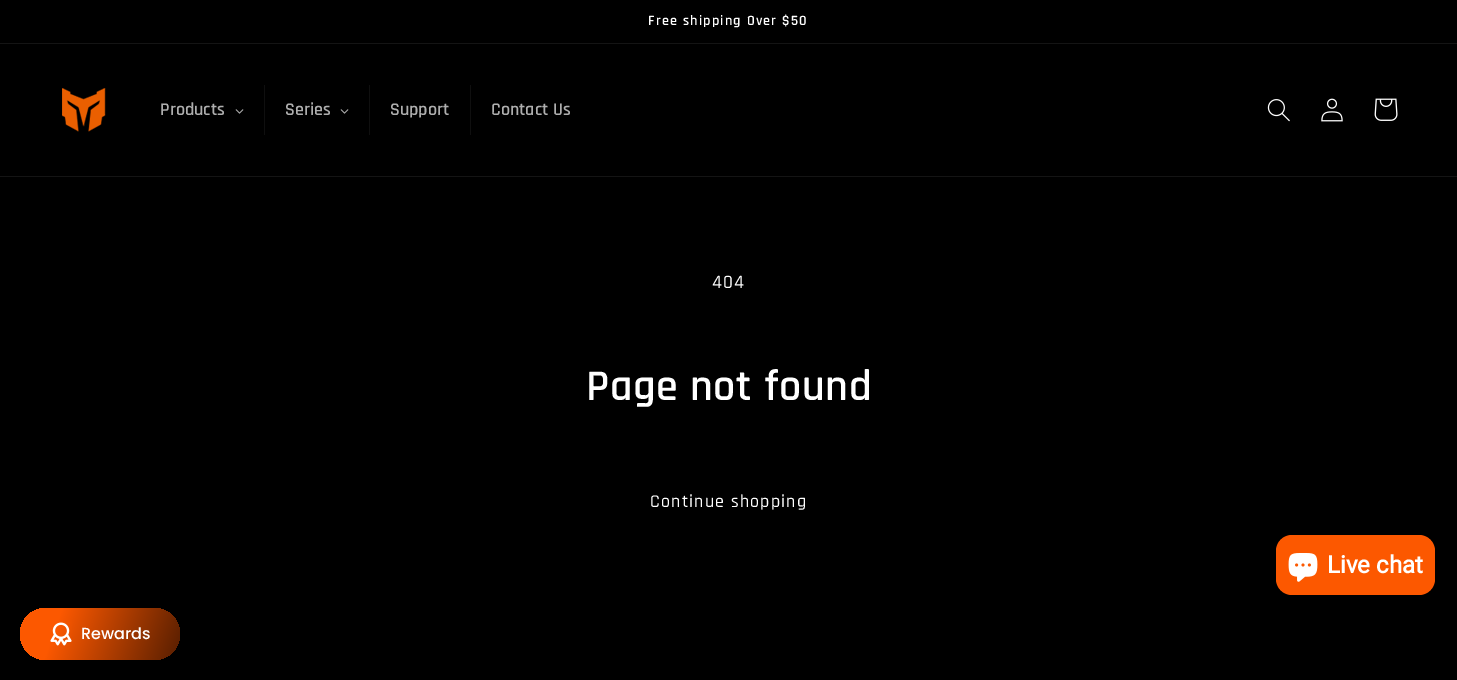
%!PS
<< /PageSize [1457 680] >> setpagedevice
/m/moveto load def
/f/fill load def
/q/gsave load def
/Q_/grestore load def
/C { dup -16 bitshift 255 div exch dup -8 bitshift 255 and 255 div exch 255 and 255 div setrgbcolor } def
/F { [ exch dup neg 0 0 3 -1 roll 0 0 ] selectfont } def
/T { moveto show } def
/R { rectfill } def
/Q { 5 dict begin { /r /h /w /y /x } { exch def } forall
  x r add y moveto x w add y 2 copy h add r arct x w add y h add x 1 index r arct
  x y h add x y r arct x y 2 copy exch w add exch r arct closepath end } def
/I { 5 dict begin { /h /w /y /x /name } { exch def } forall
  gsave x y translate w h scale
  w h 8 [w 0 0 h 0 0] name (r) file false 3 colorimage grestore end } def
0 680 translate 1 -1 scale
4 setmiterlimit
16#000000 C
0 0 1457 680 R
16#141414 C
0 43 1457 1 R
/Rajdhani-SemiBold 14.25 F
16#FFFFFF C
648 25 m 1.2 0 (Free shipping Over $50) ashow
16#141414 C
0 176 1457 1 R
(1.rgb) 62 88 44 44 I
/Rajdhani-SemiBold 18 F
16#AEAEAE C
(Products) 160 115 T
(2.rgb) 235 109 9 5 I
16#0F0F0F C
264 85 1 50 R
16#AEAEAE C
(Series) 285 115 T
(2.rgb) 340 109 9 5 I
16#0F0F0F C
369 85 1 50 R
16#AEAEAE C
(Support) 390 115 T
16#0F0F0F C
470 85 1 50 R
16#AEAEAE C
(Contact Us) 491 115 T
(3.rgb) 1267 99 23 23 I
(4.rgb) 1321 98 22 24 I
(5.rgb) 1374 98 24 23 I
/Rajdhani-Medium 19 F
16#FFFFFF C
712 288 m 1 0 (404) ashow
/Rajdhani-SemiBold 44 F
586 400 m .7 0 (Page not found) ashow
/Rajdhani-Medium 18 F
650 507 m 1.2 0 (Continue shopping) ashow
16#FC5800 C
1276 535 159 60 16 Q f
(6.rgb) 1288 553 30 29 I
/Roboto-Bold 24 F
16#FFFFFF C
(Live chat) 1327 573 T
q 20 608 160 52 26 Q clip newpath
<< /ShadingType 2 /ColorSpace /DeviceRGB /Coords [21 606 243 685] /Extend [true true] /Function << /FunctionType 3 /Domain [0 1] /Functions [<< /FunctionType 2 /Domain [0 1] /C0 [.988 .345 0] /C1 [.988 .345 0] /N 1 >> << /FunctionType 2 /Domain [0 1] /C0 [.988 .345 0] /C1 [0 0 0] /N 1 >>] /Bounds [.17] /Encode [0 1 0 1] >> >> shfill Q_
(7.rgb) 50 622 22 24 I
/Poppins-Medium 16 F
(Rewards) 81 639 T
showpage
